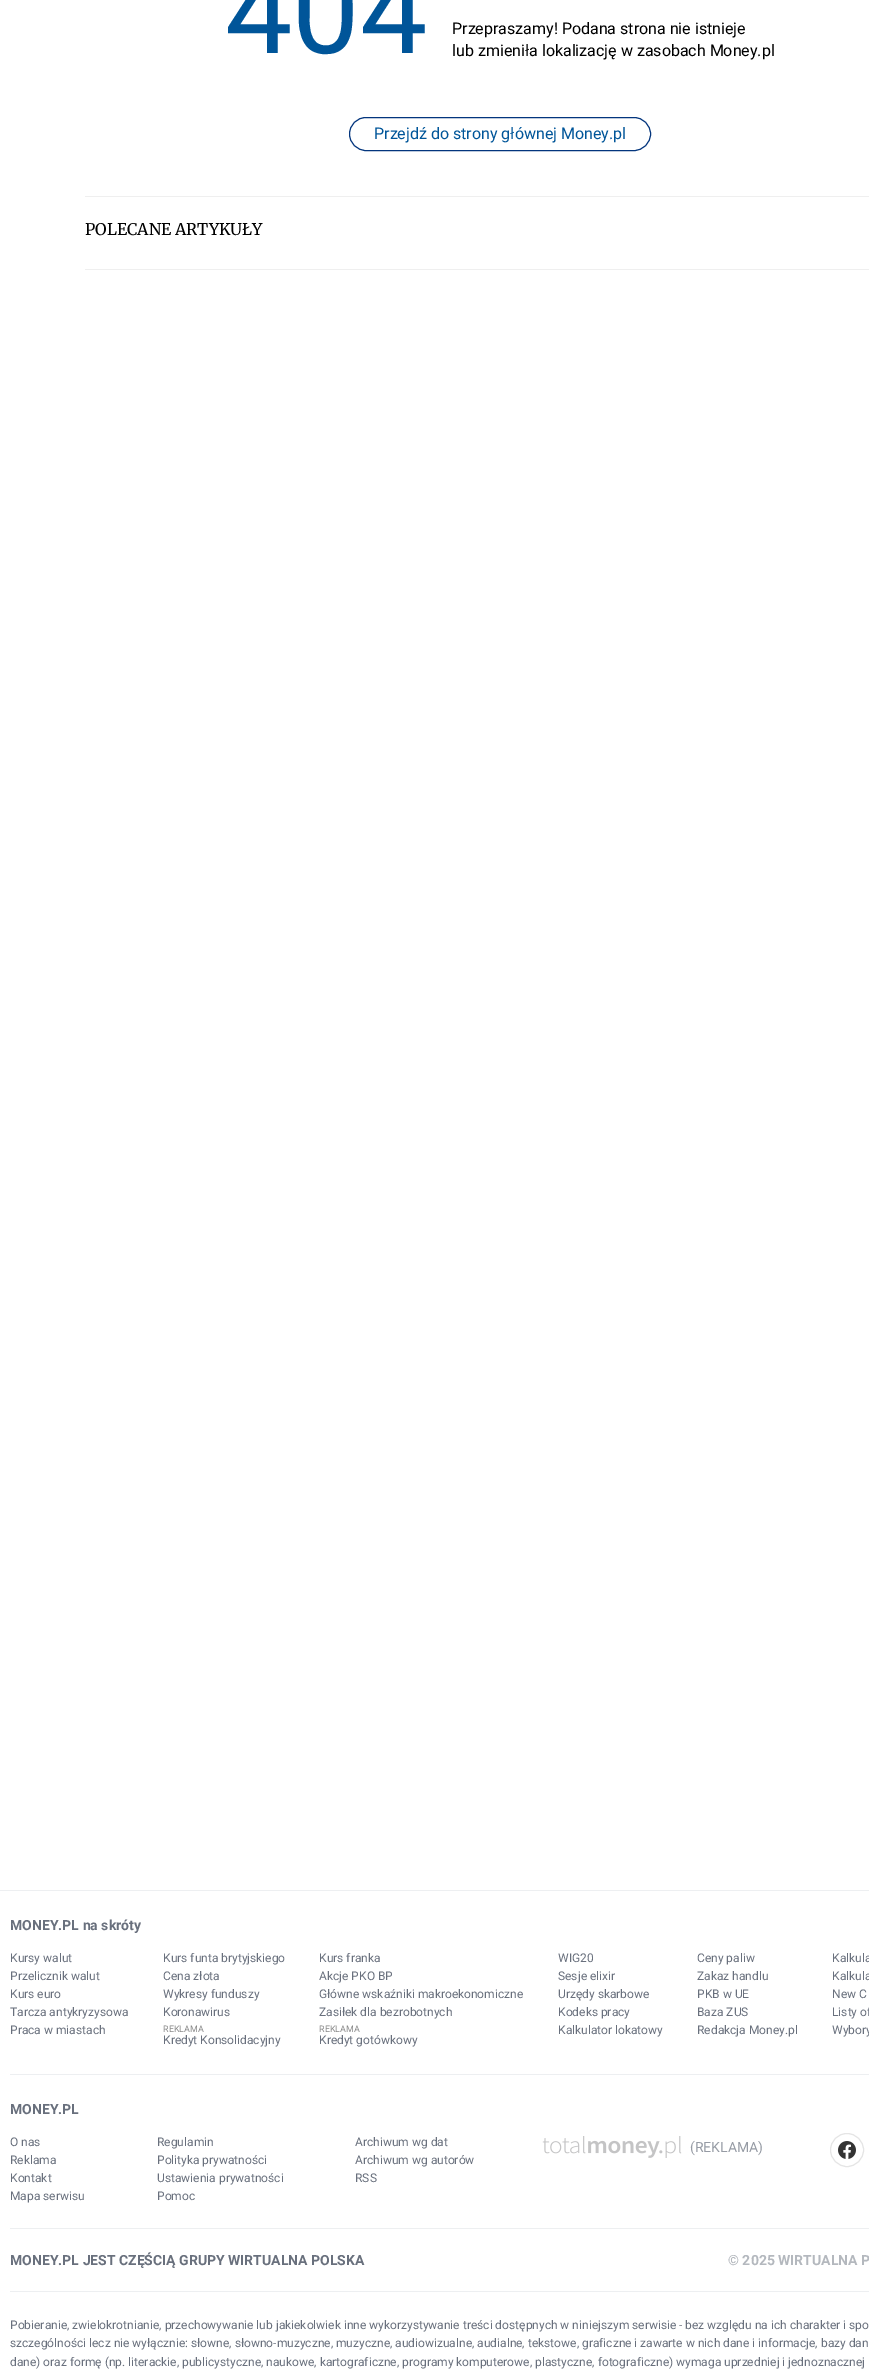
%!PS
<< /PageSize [869 2375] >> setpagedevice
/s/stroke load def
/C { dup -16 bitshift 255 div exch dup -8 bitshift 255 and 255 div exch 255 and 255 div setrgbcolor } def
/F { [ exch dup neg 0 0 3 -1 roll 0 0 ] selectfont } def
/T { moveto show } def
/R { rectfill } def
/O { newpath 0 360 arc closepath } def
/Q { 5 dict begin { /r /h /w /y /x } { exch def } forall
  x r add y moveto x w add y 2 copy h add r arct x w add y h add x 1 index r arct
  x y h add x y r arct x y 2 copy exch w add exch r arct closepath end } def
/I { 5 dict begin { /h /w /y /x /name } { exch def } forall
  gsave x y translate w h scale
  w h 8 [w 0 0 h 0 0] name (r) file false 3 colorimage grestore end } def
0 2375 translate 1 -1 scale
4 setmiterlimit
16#FFFFFF C
0 0 869 2375 R
16#EFEFEF C
85 196 784 1 R
/Roboto-Regular 120 F
16#005599 C
(404) 225 53 T
/Roboto-Regular 16 F
16#000000 C
(Przepraszamy! Podana strona nie istnieje) 452 34 T
(lub zmieniła lokalizację w zasobach Money.pl) 452 56 T
16#03357D C
349.5 117.5 301 33 16.5 Q s
16#005599 C
(Przejdź do strony głównej Money.pl) 374 139 T
16#EFEFEF C
85 269 784 1 R
/Merriweather-Regular 16 F
16#000000 C
(POLECANE ARTYKUŁY) 85 235 T
16#EDEFF1 C
0 1890 869 1 R
10 2074 859 1 R
/Roboto-Bold 14 F
16#69707D C
(MONEY.PL na skróty) 10 1930 T
/Roboto-Regular 12 F
(Kursy walut) 10 1962 T
(Przelicznik walut) 10 1980 T
(Kurs euro) 10 1998 T
(Tarcza antykryzysowa) 10 2016 T
(Praca w miastach) 10 2034 T
(Kurs funta brytyjskiego) 163 1962 T
(Cena złota) 163 1980 T
(Wykresy funduszy) 163 1998 T
(Koronawirus) 163 2016 T
/Roboto-Regular 9 F
16#888888 C
(REKLAMA) 163 2032 T
/Roboto-Regular 12 F
16#69707D C
(Kredyt Konsolidacyjny) 163 2044 T
(Kurs franka) 319 1962 T
(Akcje PKO BP) 319 1980 T
(Główne wskaźniki makroekonomiczne) 319 1998 T
(Zasiłek dla bezrobotnych) 319 2016 T
/Roboto-Regular 9 F
16#888888 C
(REKLAMA) 319 2032 T
/Roboto-Regular 12 F
16#69707D C
(Kredyt gotówkowy) 319 2044 T
(WIG20) 558 1962 T
(Sesje elixir) 558 1980 T
(Urzędy skarbowe) 558 1998 T
(Kodeks pracy) 558 2016 T
(Kalkulator lokatowy) 558 2034 T
(Ceny paliw) 697 1962 T
(Zakaz handlu) 697 1980 T
(PKB w UE) 697 1998 T
(Baza ZUS) 697 2016 T
(Redakcja Money.pl) 697 2034 T
(Kalkula) 832 1962 T
(Kalkula) 832 1980 T
(New C) 832 1998 T
(Listy of) 832 2016 T
(Wybory) 832 2034 T
16#EDEFF1 C
10 2228 859 1 R
/Roboto-Bold 14 F
16#69707D C
(MONEY.PL) 10 2114 T
/Roboto-Regular 12 F
(O nas) 10 2146 T
(Reklama) 10 2164 T
(Kontakt) 10 2182 T
(Mapa serwisu) 10 2200 T
(Regulamin) 157 2146 T
(Polityka prywatności) 157 2164 T
(Ustawienia prywatności) 157 2182 T
(Pomoc) 157 2200 T
(Archiwum wg dat) 355 2146 T
(Archiwum wg autorów) 355 2164 T
(RSS) 355 2182 T
(1.rgb) 542 2136 140 22 I
/Roboto-Regular 14 F
16#969BA4 C
(\(REKLAMA\)) 690 2152 T
16#E5E5E5 C
847 2150 16.5 O s
(2.rgb) 838 2141 18 18 I
/Roboto-Bold 14 F
16#69707D C
(MONEY.PL JEST CZĘŚCIĄ GRUPY WIRTUALNA POLSKA) 10 2265 T
16#B4B8BE C
(© 2025 WIRTUALNA P) 728 2265 T
16#EDEFF1 C
10 2291 859 1 R
/Roboto-Regular 12 F
16#69707D C
(Pobieranie, zwielokrotnianie, przechowywanie lub jakiekolwiek inne wykorzystywanie treści dostępnych w niniejszym serwisie - bez względu na ich charakter i spo) 10 2329 T
(szczególności lecz nie wyłącznie: słowne, słowno-muzyczne, muzyczne, audiowizualne, audialne, tekstowe, graficzne i zawarte w nich dane i informacje, bazy dan) 10 2347 T
(dane\) oraz formę \(np. literackie, publicystyczne, naukowe, kartograficzne, programy komputerowe, plastyczne, fotograficzne\) wymaga uprzedniej i jednoznacznej) 10 2366 T
showpage
